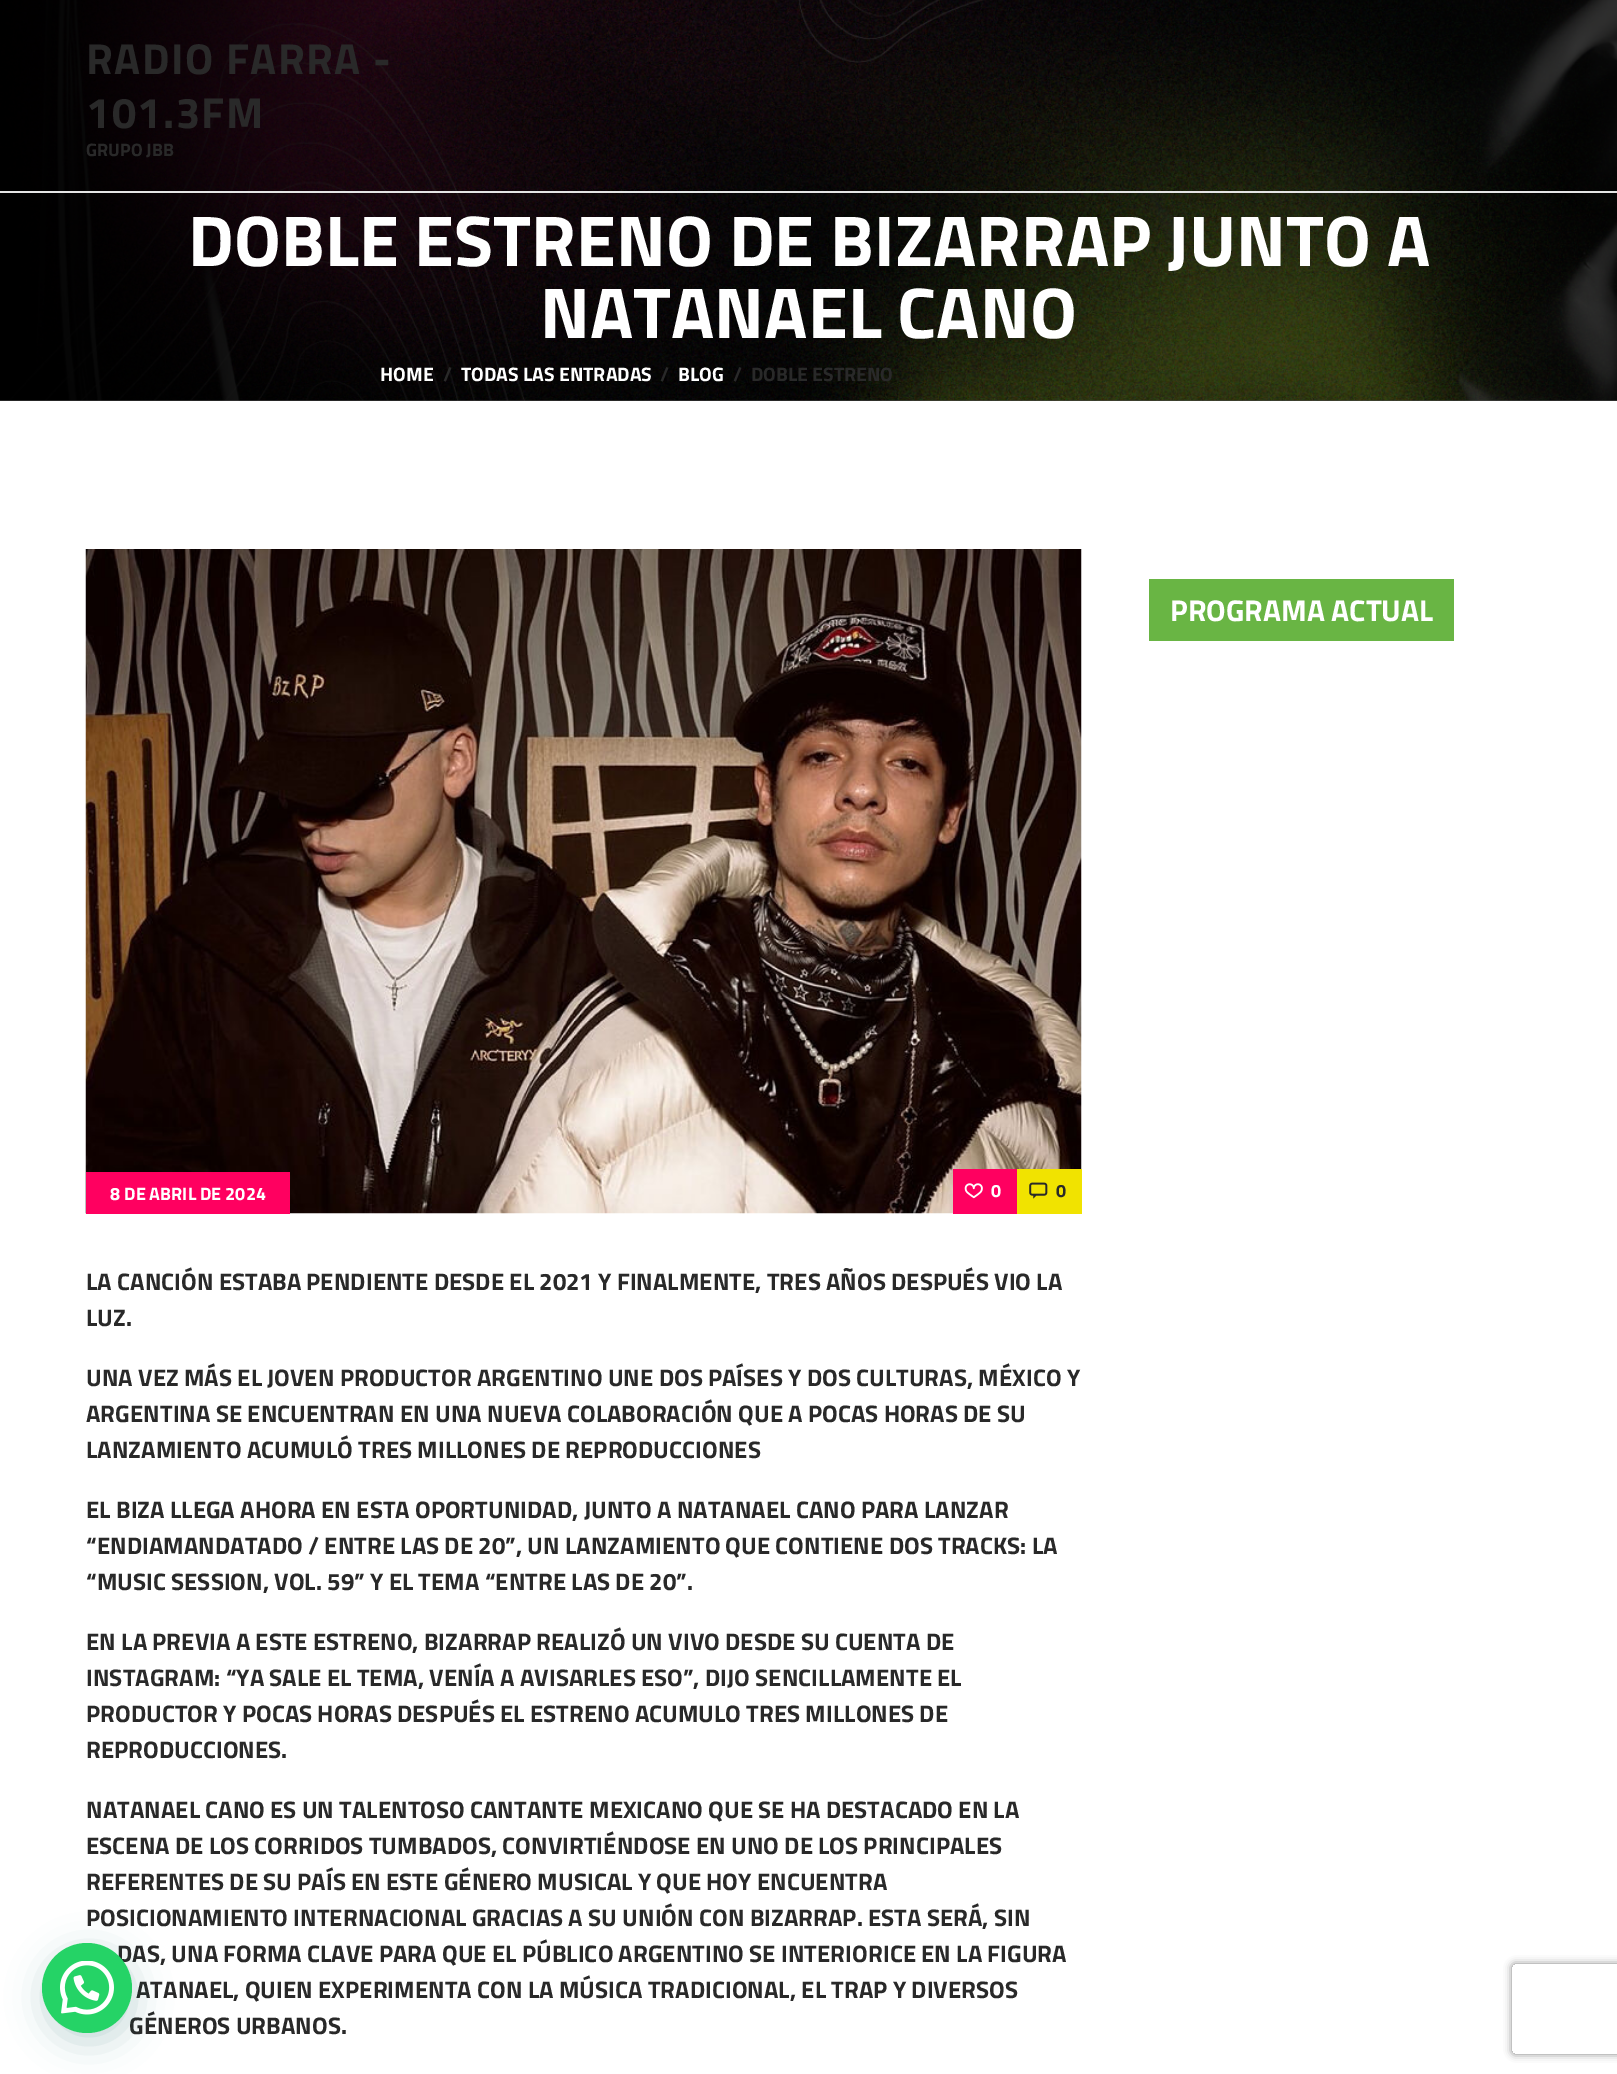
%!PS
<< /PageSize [1617 2074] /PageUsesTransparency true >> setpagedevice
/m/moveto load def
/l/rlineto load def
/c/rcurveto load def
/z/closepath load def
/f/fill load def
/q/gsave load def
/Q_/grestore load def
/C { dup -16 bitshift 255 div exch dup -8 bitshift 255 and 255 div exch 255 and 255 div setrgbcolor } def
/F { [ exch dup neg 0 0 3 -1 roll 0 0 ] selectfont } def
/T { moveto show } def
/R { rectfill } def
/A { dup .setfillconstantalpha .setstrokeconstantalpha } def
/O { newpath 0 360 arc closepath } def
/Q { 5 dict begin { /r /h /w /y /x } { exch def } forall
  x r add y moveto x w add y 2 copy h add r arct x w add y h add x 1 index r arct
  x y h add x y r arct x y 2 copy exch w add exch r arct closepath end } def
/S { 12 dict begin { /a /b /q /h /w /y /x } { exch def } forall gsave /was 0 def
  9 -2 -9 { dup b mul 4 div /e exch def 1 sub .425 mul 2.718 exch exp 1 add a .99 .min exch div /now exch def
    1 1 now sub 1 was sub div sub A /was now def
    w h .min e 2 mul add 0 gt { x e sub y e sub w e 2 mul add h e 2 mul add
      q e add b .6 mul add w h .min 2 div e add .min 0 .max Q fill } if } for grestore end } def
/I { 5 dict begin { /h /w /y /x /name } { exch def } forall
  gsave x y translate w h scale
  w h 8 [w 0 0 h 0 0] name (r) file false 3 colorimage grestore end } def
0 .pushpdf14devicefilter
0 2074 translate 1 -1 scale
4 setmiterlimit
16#FFFFFF C
0 0 1617 2074 R
(1.rgb) 0 0 1617 401 I
0.7 A
16#000000 C
0 0 1617 401 R
1 A
16#E5E5E5 C
0 191 1617 2 R
/TitilliumWeb-Bold 43.25 F
16#292929 C
86 74 m 1.5 0 (RADIO FARRA -) ashow
86 128 m 1.5 0 (101.3FM) ashow
/TitilliumWeb-Bold 18 F
(GRUPO JBB) 86 156 T
/TitilliumWeb-Bold 72 F
16#FFFFFF C
(DOBLE ESTRENO DE BIZARRAP JUNTO A) 188 266 T
(NATANAEL CANO) 540 338 T
/TitilliumWeb-Bold 19.5 F
(HOME) 380 381 T
16#292929 C
(/) 443 381 T
16#FFFFFF C
(TODAS LAS ENTRADAS) 461 381 T
16#292929 C
(/) 660 381 T
16#FFFFFF C
(BLOG) 678 381 T
16#292929 C
(/) 733 381 T
(DOBLE ESTRENO) 751 381 T
16#69B544 C
1149 579 305 62 R
/TitilliumWeb-Bold 30 F
16#FFFFFF C
(PROGRAMA ACTUAL) 1170 621 T
(2.rgb) 85 549 997 665 I
16#FF0060 C
86 1172 204 42 R
/TitilliumWeb-Bold 18 F
16#FFFFFF C
(8 DE ABRIL DE 2024) 110 1200 T
16#FF0060 C
953 1169 64 45 R
(3.rgb) 964 1183 19 16 I
16#FFFFFF C
(0) 991 1197 T
16#F1E300 C
1017 1169 65 45 R
(4.rgb) 1029 1182 19 17 I
16#292929 C
(0) 1056 1197 T
/TitilliumWeb-Bold 24 F
(LA CANCIÓN ESTABA PENDIENTE DESDE EL 2021 Y FINALMENTE, TRES AÑOS DESPUÉS VIO LA) 86 1290 T
(LUZ.) 86 1326 T
(UNA VEZ MÁS EL JOVEN PRODUCTOR ARGENTINO UNE DOS PAÍSES Y DOS CULTURAS, MÉXICO Y) 86 1386 T
(ARGENTINA SE ENCUENTRAN EN UNA NUEVA COLABORACIÓN QUE A POCAS HORAS DE SU) 86 1422 T
(LANZAMIENTO ACUMULÓ TRES MILLONES DE REPRODUCCIONES) 86 1458 T
(EL BIZA LLEGA AHORA EN ESTA OPORTUNIDAD, JUNTO A NATANAEL CANO PARA LANZAR) 86 1518 T
(“ENDIAMANDATADO / ENTRE LAS DE 20”, UN LANZAMIENTO QUE CONTIENE DOS TRACKS: LA) 86 1554 T
(“MUSIC SESSION, VOL. 59” Y EL TEMA “ENTRE LAS DE 20”.) 86 1590 T
(EN LA PREVIA A ESTE ESTRENO, BIZARRAP REALIZÓ UN VIVO DESDE SU CUENTA DE) 86 1650 T
(INSTAGRAM: “YA SALE EL TEMA, VENÍA A AVISARLES ESO”, DIJO SENCILLAMENTE EL) 86 1686 T
(PRODUCTOR Y POCAS HORAS DESPUÉS EL ESTRENO ACUMULO TRES MILLONES DE) 86 1722 T
(REPRODUCCIONES.) 86 1758 T
(NATANAEL CANO ES UN TALENTOSO CANTANTE MEXICANO QUE SE HA DESTACADO EN LA) 86 1818 T
(ESCENA DE LOS CORRIDOS TUMBADOS, CONVIRTIÉNDOSE EN UNO DE LOS PRINCIPALES) 86 1854 T
(REFERENTES DE SU PAÍS EN ESTE GÉNERO MUSICAL Y QUE HOY ENCUENTRA) 86 1890 T
(POSICIONAMIENTO INTERNACIONAL GRACIAS A SU UNIÓN CON BIZARRAP. ESTA SERÁ, SIN) 86 1926 T
(DAS, UNA FORMA CLAVE PARA QUE EL PÚBLICO ARGENTINO SE INTERIORICE EN LA FIGURA) 117 1962 T
(ATANAEL, QUIEN EXPERIMENTA CON LA MÚSICA TRADICIONAL, EL TRAP Y DIVERSOS) 136 1998 T
(GÉNEROS URBANOS.) 129 2034 T
16#075E54 C
44 1952 90 90 45 18 .24 S
16#25D366 C
87 1988 45 O f
(5.rgb) 60 1961 54 54 I
q
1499 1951 m 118 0 l 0 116 l -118 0 l z 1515 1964 m 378 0 l 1.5 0 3 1.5 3 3 c 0 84 l 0 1.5 -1.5 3 -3 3 c -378 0 l -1.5 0 -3 -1.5 -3 -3 c 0 -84 l 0 -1.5 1.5 -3 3 -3 c z eoclip newpath
16#808080 C
1512 1964 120 90 3 4 1 S
Q_
.poppdf14devicefilter showpage
